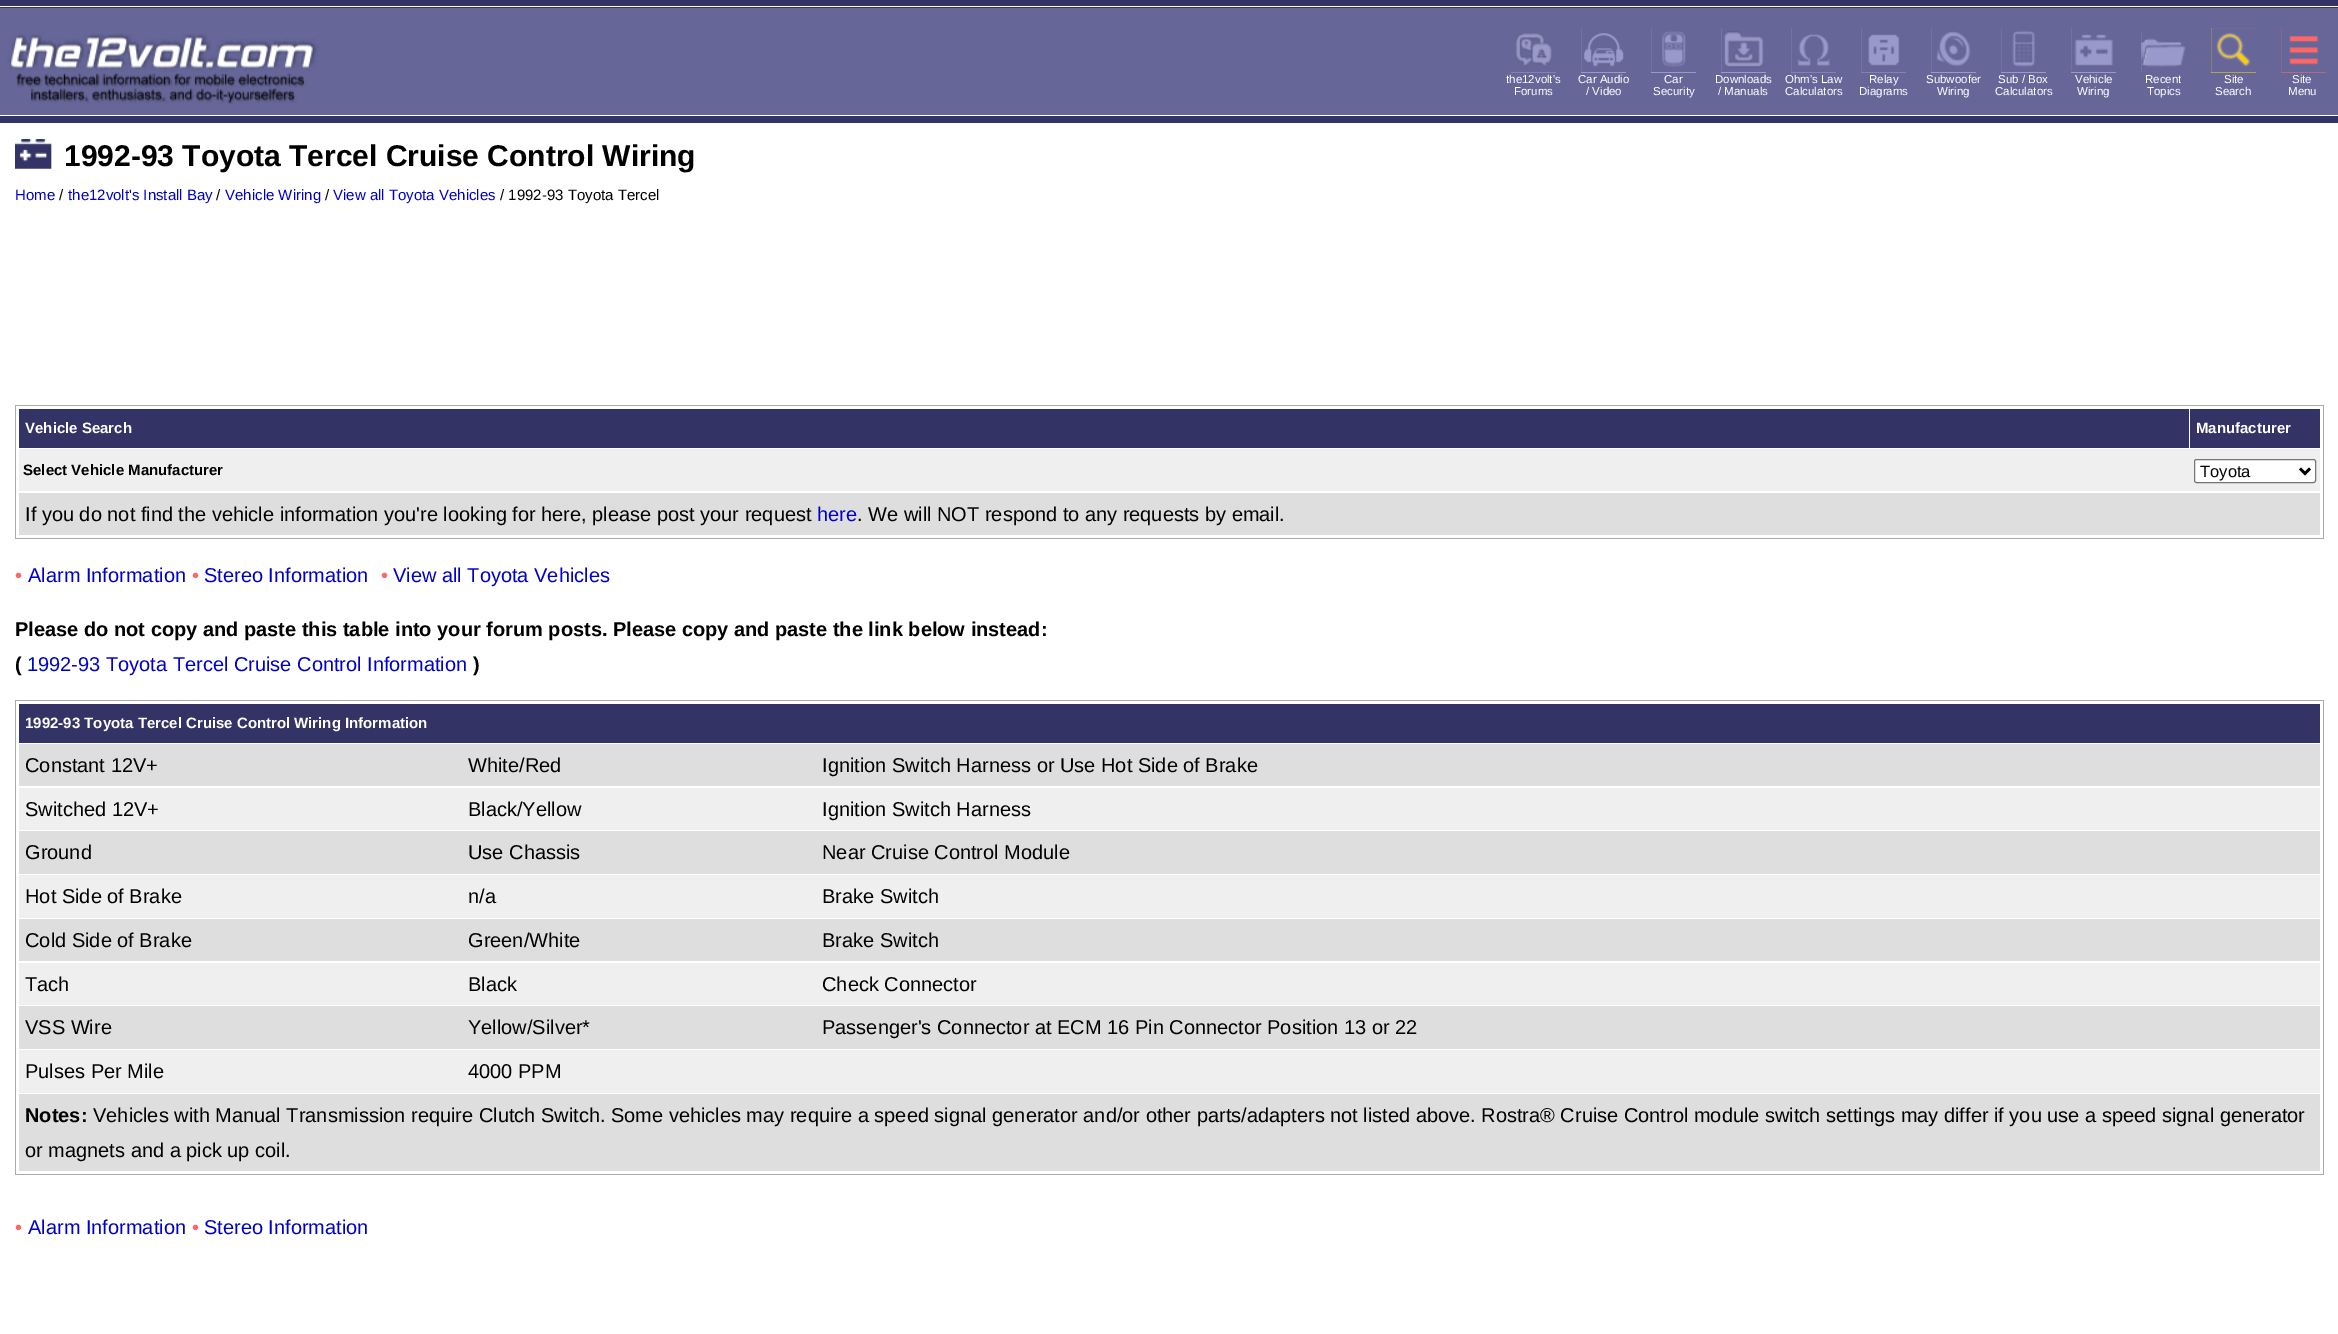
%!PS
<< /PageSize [2338 1334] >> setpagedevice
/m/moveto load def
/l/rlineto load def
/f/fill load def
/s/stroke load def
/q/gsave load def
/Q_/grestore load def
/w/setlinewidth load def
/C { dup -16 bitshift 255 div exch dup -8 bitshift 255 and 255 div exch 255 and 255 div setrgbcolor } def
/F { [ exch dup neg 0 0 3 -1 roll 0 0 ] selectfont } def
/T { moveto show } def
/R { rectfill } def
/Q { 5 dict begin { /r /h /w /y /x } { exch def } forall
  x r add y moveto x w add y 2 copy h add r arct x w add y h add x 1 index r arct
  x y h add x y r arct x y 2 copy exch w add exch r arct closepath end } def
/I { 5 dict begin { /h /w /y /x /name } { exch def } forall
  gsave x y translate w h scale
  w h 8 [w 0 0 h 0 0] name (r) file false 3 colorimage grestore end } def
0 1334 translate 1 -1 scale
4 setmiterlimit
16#FFFFFF C
0 0 2338 1334 R
16#333366 C
0 0 2338 8 R
16#FFFFFF C
0 6 2338 1 R
16#666699 C
0 8 2338 107 R
(1.rgb) 7 33 312 72 I
16#9999CC C
1511 28 45 45 R
(2.rgb) 1511 28 45 45 I
/LiberationSans-Regular 11.5 F
16#FFFFFF C
(the12volt's) 1506 83 T
(Forums) 1514 95 T
16#9999CC C
1581 28 45 45 R
(3.rgb) 1581 28 45 43 I
16#666699 C
1581 71 45 1 R
16#FFFFFF C
(Car Audio) 1578 83 T
(/ Video) 1586 95 T
16#9999CC C
1651 28 45 45 R
(4.rgb) 1651 28 45 43 I
16#666699 C
1651 71 45 1 R
16#FFFFFF C
(Car) 1664 83 T
(Security) 1653 95 T
16#9999CC C
1721 28 45 45 R
(5.rgb) 1721 28 45 43 I
16#666699 C
1721 71 45 1 R
16#FFFFFF C
(Downloads) 1715 83 T
(/ Manuals) 1718 95 T
16#9999CC C
1791 28 45 45 R
(6.rgb) 1791 28 45 45 I
16#FFFFFF C
(Ohm's Law) 1785 83 T
(Calculators) 1785 95 T
16#9999CC C
1861 28 45 45 R
(7.rgb) 1861 28 45 45 I
16#FFFFFF C
(Relay) 1869 83 T
(Diagrams) 1859 95 T
16#9999CC C
1931 28 45 45 R
(8.rgb) 1931 28 45 43 I
16#666699 C
1931 71 45 1 R
16#FFFFFF C
(Subwoofer) 1926 83 T
(Wiring) 1937 95 T
16#9999CC C
2001 28 45 45 R
(9.rgb) 2001 28 45 43 I
16#666699 C
2001 71 45 1 R
16#FFFFFF C
(Sub / Box) 1998 83 T
(Calculators) 1995 95 T
16#9999CC C
2071 28 45 45 R
(10.rgb) 2071 28 45 43 I
16#666699 C
2071 71 45 1 R
16#FFFFFF C
(Vehicle) 2075 83 T
(Wiring) 2077 95 T
16#9999CC C
2141 31 45 42 R
(11.rgb) 2141 31 45 42 I
16#FFFFFF C
(Recent) 2145 83 T
(Topics) 2147 95 T
16#FFCC00 C
2211 28 45 45 R
(12.rgb) 2211 28 45 45 I
16#FFFFFF C
(Site) 2224 83 T
(Search) 2215 95 T
16#FF6666 C
2281 28 45 45 R
(13.rgb) 2281 28 45 45 I
16#FFFFFF C
(Site) 2292 83 T
(Menu) 2288 95 T
16#333366 C
0 116 2338 7 R
(14.rgb) 15 139 37 30 I
/LiberationSans-Bold 30 F
16#000000 C
(1992-93 Toyota Tercel Cruise Control Wiring) 64 166 T
/LiberationSans-Regular 15 F
16#0000CC C
(Home) 15 200 T
16#000000 C
(/) 59 200 T
16#0000CC C
(the12volt's Install Bay) 68 200 T
16#000000 C
(/) 216 200 T
16#0000CC C
(Vehicle Wiring) 225 200 T
16#000000 C
(/) 325 200 T
16#0000CC C
(View all Toyota Vehicles) 333 200 T
16#000000 C
(/ 1992-93 Toyota Tercel) 500 200 T
16#AAAAAA C
15 405 2309 134 R
16#FFFFFF C
16 406 2307 132 R
16#333366 C
19 409 2170 39 R
/LiberationSans-Bold 15 F
16#FFFFFF C
(Vehicle Search) 25 433 T
16#333366 C
2190 409 130 39 R
16#FFFFFF C
(Manufacturer) 2196 433 T
16#EFEFEF C
19 449 2301 42 R
16#000000 C
(Select Vehicle Manufacturer) 23 475 T
16#FFFFFF C
2194.5 459.5 121 23 2 Q q f Q_
16#767676 C
s
16#000000 C
2.5 w
2300 468.5 m 5 5 l 5 -5 l s
/LiberationSans-Regular 16.5 F
(Toyota) 2200 477 T
16#DEDEDE C
19 493 2301 42 R
/LiberationSans-Regular 20 F
16#000000 C
(If you do not find the vehicle information you're looking for here, please post your request) 25 521 T
16#0000CC C
(here) 817 521 T
16#000000 C
(. We will NOT respond to any requests by email.) 857 521 T
16#FF6666 C
(•) 15 582 T
16#0000CC C
(Alarm Information) 28 582 T
16#FF6666 C
(•) 192 582 T
16#0000CC C
(Stereo Information) 204 582 T
16#FF6666 C
(•) 381 582 T
16#0000CC C
(View all Toyota Vehicles) 393 582 T
/LiberationSans-Bold 20 F
16#000000 C
(Please do not copy and paste this table into your forum posts. Please copy and paste the link below instead:) 15 636 T
(\() 15 671 T
/LiberationSans-Regular 20 F
16#0000CC C
(1992-93 Toyota Tercel Cruise Control Information) 27 671 T
/LiberationSans-Bold 20 F
16#000000 C
(\)) 473 671 T
16#AAAAAA C
15 700 2309 475 R
16#FFFFFF C
16 701 2307 473 R
16#333366 C
19 704 2301 39 R
/LiberationSans-Bold 15 F
16#FFFFFF C
(1992-93 Toyota Tercel Cruise Control Wiring Information) 25 728 T
16#DEDEDE C
19 744 2301 42 R
/LiberationSans-Regular 20 F
16#000000 C
(Constant 12V+) 25 772 T
(White/Red) 468 772 T
(Ignition Switch Harness or Use Hot Side of Brake) 822 772 T
16#EFEFEF C
19 788 2301 42 R
16#000000 C
(Switched 12V+) 25 816 T
(Black/Yellow) 468 816 T
(Ignition Switch Harness) 822 816 T
16#DEDEDE C
19 831 2301 43 R
16#000000 C
(Ground) 25 859 T
(Use Chassis) 468 859 T
(Near Cruise Control Module) 822 859 T
16#EFEFEF C
19 875 2301 43 R
16#000000 C
(Hot Side of Brake) 25 903 T
(n/a) 468 903 T
(Brake Switch) 822 903 T
16#DEDEDE C
19 919 2301 42 R
16#000000 C
(Cold Side of Brake) 25 947 T
(Green/White) 468 947 T
(Brake Switch) 822 947 T
16#EFEFEF C
19 963 2301 42 R
16#000000 C
(Tach) 25 991 T
(Black) 468 991 T
(Check Connector) 822 991 T
16#DEDEDE C
19 1006 2301 43 R
16#000000 C
(VSS Wire) 25 1034 T
(Yellow/Silver*) 468 1034 T
(Passenger's Connector at ECM 16 Pin Connector Position 13 or 22) 822 1034 T
16#EFEFEF C
19 1050 2301 43 R
16#000000 C
(Pulses Per Mile) 25 1078 T
(4000 PPM) 468 1078 T
16#DEDEDE C
19 1094 2301 77 R
/LiberationSans-Bold 20 F
16#000000 C
(Notes:) 25 1122 T
/LiberationSans-Regular 20 F
(Vehicles with Manual Transmission require Clutch Switch. Some vehicles may require a speed signal generator and/or other parts/adapters not listed above. Rostra® Cruise Control module switch settings may differ if you use a speed signal generator) 93 1122 T
(or magnets and a pick up coil.) 25 1157 T
16#FF6666 C
(•) 15 1234 T
16#0000CC C
(Alarm Information) 28 1234 T
16#FF6666 C
(•) 192 1234 T
16#0000CC C
(Stereo Information) 204 1234 T
showpage
